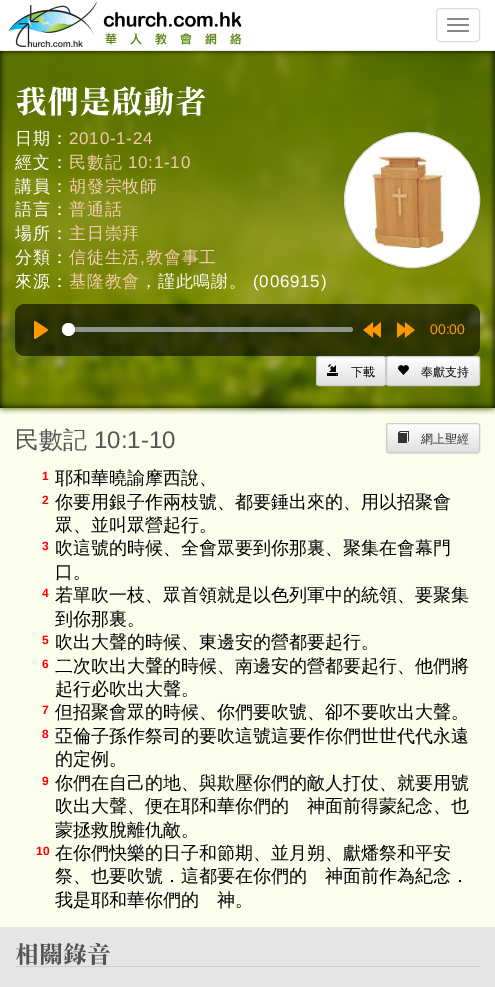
%!PS
<< /PageSize [495 987] /PageUsesTransparency true >> setpagedevice
/m/moveto load def
/l/rlineto load def
/c/rcurveto load def
/z/closepath load def
/f/fill load def
/s/stroke load def
/q/gsave load def
/Q_/grestore load def
/C { dup -16 bitshift 255 div exch dup -8 bitshift 255 and 255 div exch 255 and 255 div setrgbcolor } def
/F { [ exch dup neg 0 0 3 -1 roll 0 0 ] selectfont } def
/T { moveto show } def
/R { rectfill } def
/A { dup .setfillconstantalpha .setstrokeconstantalpha } def
/O { newpath 0 360 arc closepath } def
/Q { 5 dict begin { /r /h /w /y /x } { exch def } forall
  x r add y moveto x w add y 2 copy h add r arct x w add y h add x 1 index r arct
  x y h add x y r arct x y 2 copy exch w add exch r arct closepath end } def
/S { 12 dict begin { /a /b /q /h /w /y /x } { exch def } forall gsave /was 0 def
  9 -2 -9 { dup b mul 4 div /e exch def 1 sub .425 mul 2.718 exch exp 1 add a .99 .min exch div /now exch def
    1 1 now sub 1 was sub div sub A /was now def
    w h .min e 2 mul add 0 gt { x e sub y e sub w e 2 mul add h e 2 mul add
      q e add b .6 mul add w h .min 2 div e add .min 0 .max Q fill } if } for grestore end } def
/I { 5 dict begin { /h /w /y /x /name } { exch def } forall
  gsave x y translate w h scale
  w h 8 [w 0 0 h 0 0] name (r) file false 3 colorimage grestore end } def
0 .pushpdf14devicefilter
0 987 translate 1 -1 scale
4 setmiterlimit
16#FBFEED C
0 0 495 987 R
16#000000 C
0 51 495 357 R
0 50 495 358 0 3 .7 S
(2.rgb) 0 51 495 363 I
0 1 495 51 0 2.5 .07 S
16#E7E7E7 C
0 50 495 1 R
16#FFFFFF C
0 0 495 50 R
(1.rgb) 8 1 236 46 I
16#DDDDDD C
436.5 8.5 43 33 3.5 Q s
16#888888 C
447 18 22 2 1 Q f
447 24 22 2 1 Q f
447 30 22 2 1 Q f
(3.rgb) 16 87 30 29 I
(4.rgb) 48 86 30 30 I
(5.rgb) 80 86 30 30 I
(6.rgb) 112 86 30 30 I
(7.rgb) 144 86 30 31 I
(8.rgb) 176 86 30 30 I
/WenQuanYiZenHei-Medium 17 F
16#FFFFFF C
15 144 m .75 0 (日期：) ashow
/LiberationSans-Regular 17 F
16#F4CCAD C
69 144 m .75 0 (2010-1-24) ashow
/WenQuanYiZenHei-Medium 17 F
16#FFFFFF C
15 168 m .75 0 (經文：) ashow
16#F4CCAD C
69 168 m .75 0 (民數記) ashow
/LiberationSans-Regular 17 F
128 168 m .75 0 (10:1-10) ashow
/WenQuanYiZenHei-Medium 17 F
16#FFFFFF C
15 192 m .75 0 (講員：) ashow
16#F4CCAD C
69 192 m .75 0 (胡發宗牧師) ashow
16#FFFFFF C
15 215 m .75 0 (語言：) ashow
16#F4CCAD C
69 215 m .75 0 (普通話) ashow
16#FFFFFF C
15 239 m .75 0 (場所：) ashow
16#F4CCAD C
69 239 m .75 0 (主日崇拜) ashow
16#FFFFFF C
15 263 m .75 0 (分類：) ashow
16#F4CCAD C
69 263 m .75 0 (信徒生活) ashow
/LiberationSans-Regular 17 F
140 263 m .75 0 (,) ashow
/WenQuanYiZenHei-Medium 17 F
146 263 m .75 0 (教會事工) ashow
16#FFFFFF C
15 287 m .75 0 (來源：) ashow
16#F4CCAD C
69 287 m .75 0 (基隆教會) ashow
16#FFFFFF C
140 287 m .75 0 (，謹此鳴謝。) ashow
/LiberationSans-Regular 17 F
253 287 m .75 0 (\(006915\)) ashow
16#000000 C
344 133 136 136 68 1 .07 S
16#FFFFFF C
412 200 67.5 O q f Q_
16#DDDDDD C
s
(9.rgb) 371 155 76 94 I
16#000000 C
386 357 94 30 3 .5 .07 S
q
386 356 94 30 3 Q clip newpath
q 386 357 m 94 0 l 0 28 l -94 0 l z clip newpath
<< /ShadingType 2 /ColorSpace /DeviceRGB /Coords [433 357 433 385] /Extend [true true] /Function << /FunctionType 2 /Domain [0 1] /C0 [1 1 1] /C1 [.878 .878 .878] /N 1 >> >> shfill Q_
Q_
16#FEFEFE C
389 358 m 88 0 l 1 0 2 1 2 2 c 0 -1 0 -3 -2 -3 c -73 0 l -3 0 -17 -4 -17 3 c 0 -1 1 -2 2 -2 c z f
16#CCCCCC C
386.5 356.5 93 29 2.5 Q s
16#000000 C
316 357 70 30 3 .5 .07 S
0.6 A
15 304 465 52 10 Q f
1 A
(10.rgb) 34 321 14 18 I
0.66 A
16#C1C9D1 C
62 327 291 5 2.5 Q f
0.2 A
16#23292F C
68.5 329.5 7 O s
1 A
16#000000 C
62 324 13 13 6.5 .5 .15 S
16#FFFFFF C
68.5 329.5 6.5 O f
(11.rgb) 363 322 18 16 I
(12.rgb) 397 322 18 16 I
/LiberationSans-Regular 14 F
16#FF9800 C
(00:00) 430 334 T
q
316 356 70 30 3 Q clip newpath
q 316 357 m 70 0 l 0 28 l -70 0 l z clip newpath
<< /ShadingType 2 /ColorSpace /DeviceRGB /Coords [351 357 351 385] /Extend [true true] /Function << /FunctionType 2 /Domain [0 1] /C0 [1 1 1] /C1 [.878 .878 .878] /N 1 >> >> shfill Q_
Q_
16#CCCCCC C
316.5 356.5 69 29 2.5 Q s
(13.rgb) 327 364 11 12 I
/WenQuanYiZenHei-Medium 12 F
16#000000 C
(下載) 351 376 T
(14.rgb) 398 365 11 10 I
(奉獻支持) 421 376 T
/WenQuanYiZenHei-Medium 24 F
16#555555 C
(民數記) 15 448 T
/LiberationSans-Regular 24 F
(10:1-10) 94 448 T
/LiberationSans-Bold 12 F
16#FF0000 C
(1) 42 480 T
/WenQuanYiZenHei-Medium 18 F
16#000000 C
(耶和華曉諭摩西說、) 55 484 T
/LiberationSans-Bold 12 F
16#FF0000 C
(2) 42 504 T
/WenQuanYiZenHei-Medium 18 F
16#000000 C
(你要用銀子作兩枝號、都要錘出來的、用以招聚會) 55 508 T
(眾、並叫眾營起行。) 55 531 T
/LiberationSans-Bold 12 F
16#FF0000 C
(3) 42 550 T
/WenQuanYiZenHei-Medium 18 F
16#000000 C
(吹這號的時候、全會眾要到你那裏、聚集在會幕門) 55 554 T
(口。) 55 578 T
/LiberationSans-Bold 12 F
16#FF0000 C
(4) 42 597 T
/WenQuanYiZenHei-Medium 18 F
16#000000 C
(若單吹一枝、眾首領就是以色列軍中的統領、要聚集) 55 601 T
(到你那裏。) 55 625 T
/LiberationSans-Bold 12 F
16#FF0000 C
(5) 42 644 T
/WenQuanYiZenHei-Medium 18 F
16#000000 C
(吹出大聲的時候、東邊安的營都要起行。) 55 648 T
/LiberationSans-Bold 12 F
16#FF0000 C
(6) 42 668 T
/WenQuanYiZenHei-Medium 18 F
16#000000 C
(二次吹出大聲的時候、南邊安的營都要起行、他們將) 55 672 T
(起行必吹出大聲。) 55 695 T
/LiberationSans-Bold 12 F
16#FF0000 C
(7) 42 714 T
/WenQuanYiZenHei-Medium 18 F
16#000000 C
(但招聚會眾的時候、你們要吹號、卻不要吹出大聲。) 55 718 T
/LiberationSans-Bold 12 F
16#FF0000 C
(8) 42 738 T
/WenQuanYiZenHei-Medium 18 F
16#000000 C
(亞倫子孫作祭司的要吹這號這要作你們世世代代永遠) 55 742 T
(的定例。) 55 765 T
/LiberationSans-Bold 12 F
16#FF0000 C
(9) 42 785 T
/WenQuanYiZenHei-Medium 18 F
16#000000 C
(你們在自己的地、與欺壓你們的敵人打仗、就要用號) 55 789 T
(吹出大聲、便在耶和華你們的　神面前得蒙紀念、也) 55 812 T
(蒙拯救脫離仇敵。) 55 836 T
/LiberationSans-Bold 12 F
16#FF0000 C
(10) 36 855 T
/WenQuanYiZenHei-Medium 18 F
16#000000 C
(在你們快樂的日子和節期、並月朔、獻燔祭和平安) 55 859 T
(祭、也要吹號．這都要在你們的　神面前作為紀念．) 55 882 T
(我是耶和華你們的　神。) 55 906 T
386 424 94 30 3 .5 .07 S
q
386 423 94 30 3 Q clip newpath
q 386 424 m 94 0 l 0 28 l -94 0 l z clip newpath
<< /ShadingType 2 /ColorSpace /DeviceRGB /Coords [433 424 433 452] /Extend [true true] /Function << /FunctionType 2 /Domain [0 1] /C0 [1 1 1] /C1 [.878 .878 .878] /N 1 >> >> shfill Q_
Q_
16#FEFEFE C
389 425 m 88 0 l 1 0 2 1 2 2 c 0 -1 0 -3 -2 -3 c -73 0 l -3 0 -17 -4 -17 3 c 0 -1 1 -2 2 -2 c z f
16#CCCCCC C
386.5 423.5 93 29 2.5 Q s
(15.rgb) 398 431 11 12 I
/WenQuanYiZenHei-Medium 12 F
16#333333 C
(網上聖經) 421 443 T
16#E5E5E5 C
0 927 495 60 R
16#CCCCCC C
15 966 465 1 R
(16.rgb) 16 943 22 22 I
(17.rgb) 40 943 22 22 I
(18.rgb) 63 942 23 23 I
(19.rgb) 88 943 22 22 I
.poppdf14devicefilter showpage
